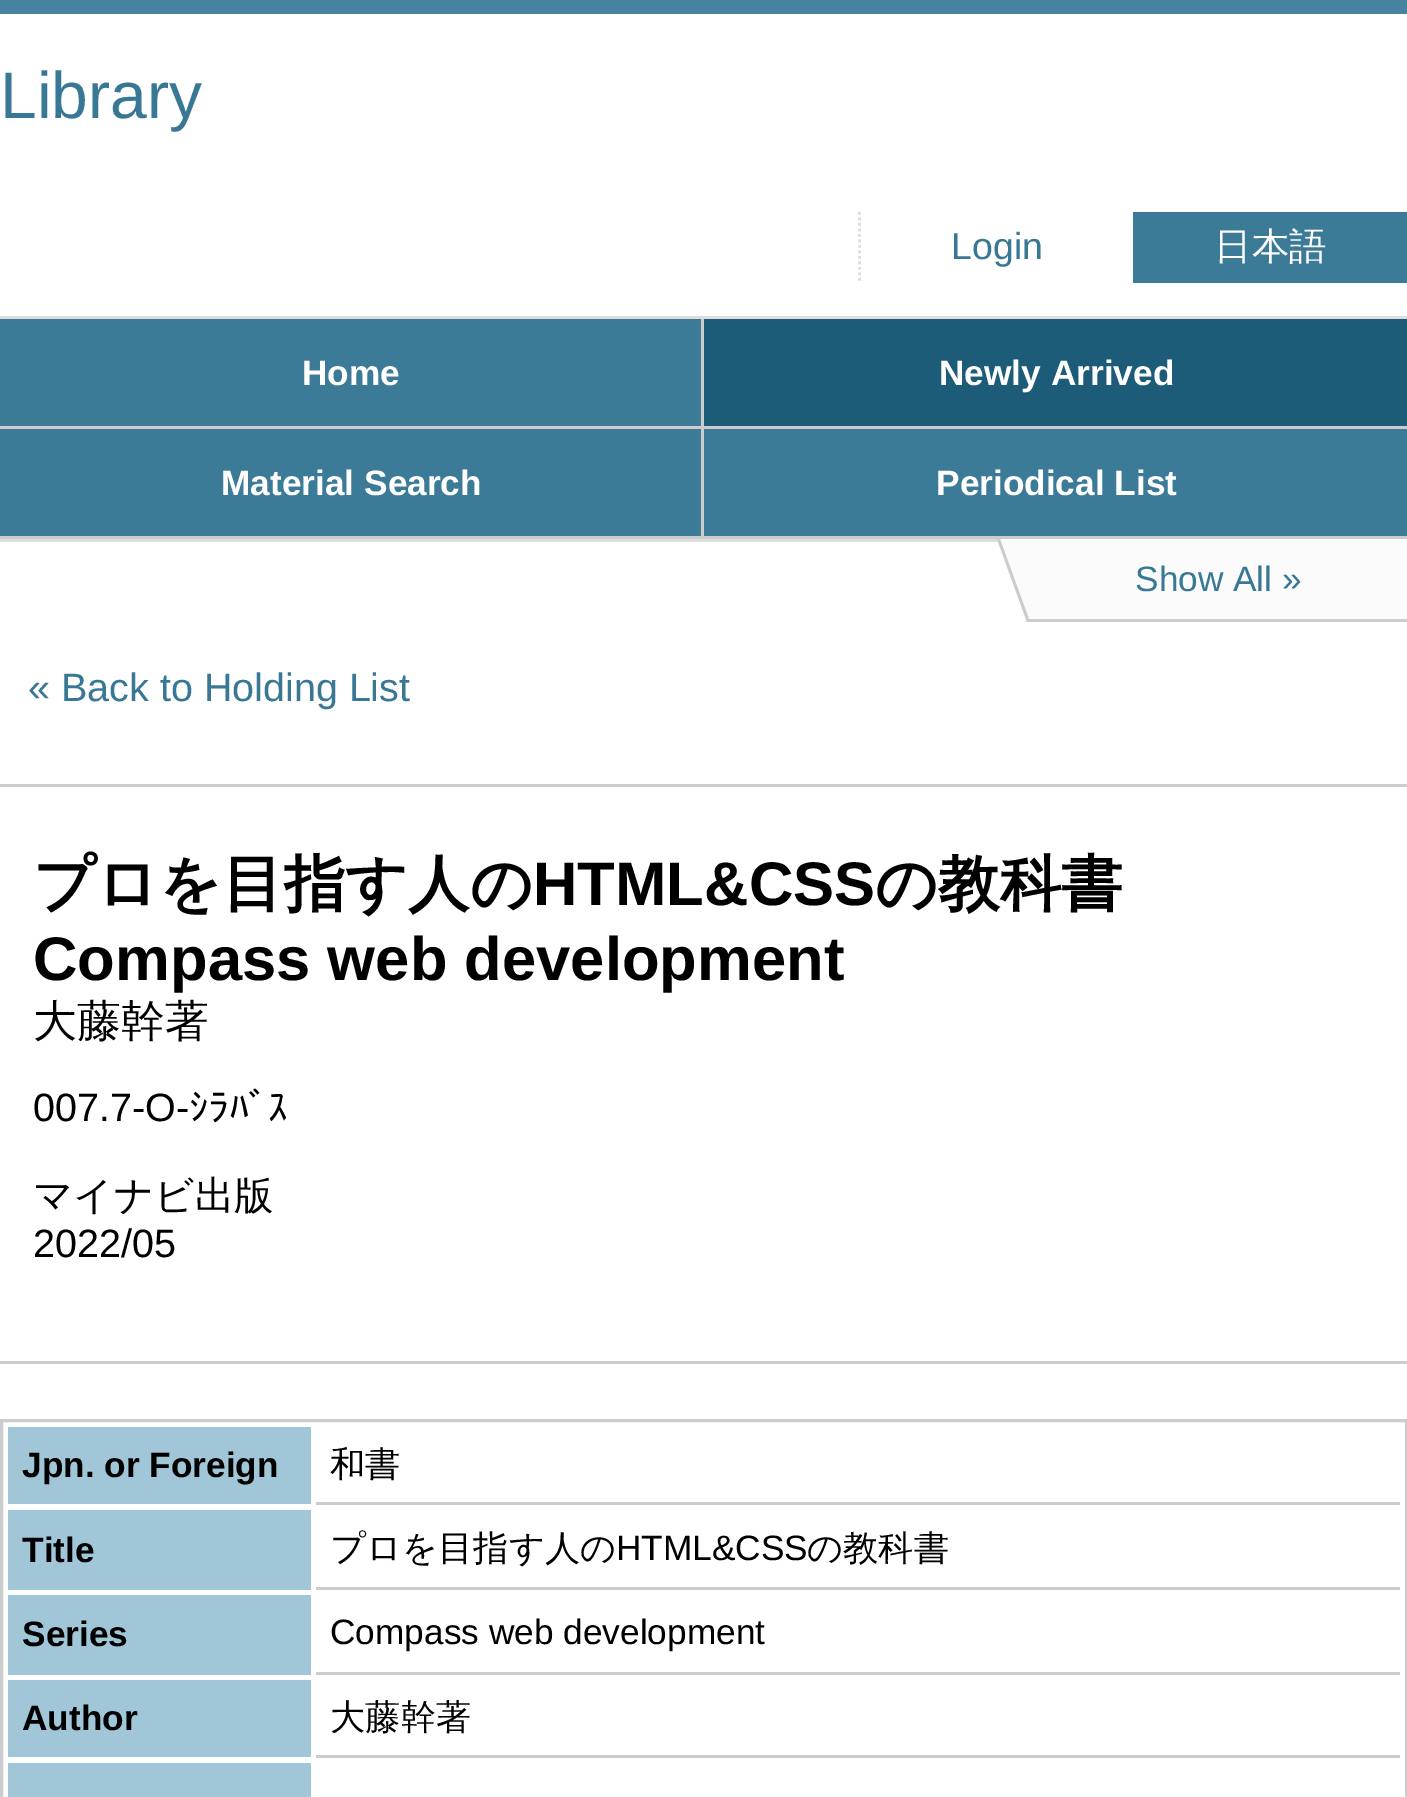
%!PS
<< /PageSize [1407 1797] >> setpagedevice
/m/moveto load def
/l/rlineto load def
/z/closepath load def
/f/fill load def
/s/stroke load def
/w/setlinewidth load def
/C { dup -16 bitshift 255 div exch dup -8 bitshift 255 and 255 div exch 255 and 255 div setrgbcolor } def
/F { [ exch dup neg 0 0 3 -1 roll 0 0 ] selectfont } def
/T { moveto show } def
/R { rectfill } def
0 1797 translate 1 -1 scale
4 setmiterlimit
16#FFFFFF C
0 0 1407 1797 R
16#4583A1 C
0 0 1407 14 R
/LiberationSans-Regular 66 F
16#387895 C
(Library) 0 118 T
16#DDDDDD C
2.8 w
[2.75 2.75] 0 setdash
859.5 212 m 0 71 l s
/LiberationSans-Regular 37.5 F
16#387895 C
(Login) 951 259 T
16#3C7B97 C
1133 212 274 71 R
/WenQuanYiZenHei-Medium 37.5 F
16#FFFFFF C
(日本語) 1214 259 T
16#DDDDDD C
0 316 1407 3 R
0 539 999 3 R
16#CCCCCC C
701 319 3 220 R
0 426 1407 3 R
16#3C7B97 C
0 319 701 107 R
/LiberationSans-Bold 35.25 F
16#FFFFFF C
(Home) 302 385 T
16#1C5C79 C
704 319 703 107 R
16#FFFFFF C
(Newly Arrived) 939 385 T
16#CCCCCC C
0 536 1407 3 R
16#3C7B97 C
0 429 701 107 R
16#FFFFFF C
(Material Search) 221 495 T
16#3C7B97 C
704 429 703 107 R
16#FFFFFF C
(Periodical List) 936 495 T
16#FBFBFB C
997 539 m 410 0 l 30 83 l -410 0 l z f
16#CCCCCC C
1026 619 m 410 0 l 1 3 l -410 0 l z f
997 539 m 3 0 l 30 83 l -3 0 l z f
/LiberationSans-Regular 35.25 F
16#387895 C
(Show All ») 1135 591 T
/LiberationSans-Regular 39.5 F
(« Back to Holding List) 28 701 T
16#CCCCCC C
0 784 1407 3 R
0 1361 1407 3 R
/WenQuanYiZenHei-Bold 61.6 F
16#000000 C
(プロを目指す人の) 33 905 T
/LiberationSans-Bold 61.6 F
(HTML&CSS) 533 905 T
/WenQuanYiZenHei-Bold 61.6 F
(の教科書) 875 905 T
/LiberationSans-Bold 61.6 F
(Compass web development) 33 980 T
/WenQuanYiZenHei-Medium 44 F
(大藤幹著) 33 1036 T
/LiberationSans-Regular 39.5 F
(007.7-O-) 33 1121 T
/IPAGothic-Regular 39.5 F
(ｼﾗﾊﾞｽ) 189 1121 T
/WenQuanYiZenHei-Medium 39.5 F
(マイナビ出版) 33 1209 T
/LiberationSans-Regular 39.5 F
(2022/05) 33 1257 T
16#CCCCCC C
3 w
[] 0 setdash
1.5 1420.5 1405 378 rectstroke
16#A0C6D7 C
8 1427 303 77 R
/LiberationSans-Bold 35.25 F
16#000000 C
(Jpn. or Foreign) 22 1477 T
16#CCCCCC C
316 1502 1084 3 R
/WenQuanYiZenHei-Medium 35.25 F
16#000000 C
(和書) 330 1476 T
16#A0C6D7 C
8 1510 303 80 R
/LiberationSans-Bold 35.25 F
16#000000 C
(Title) 22 1562 T
16#CCCCCC C
316 1587 1084 3 R
/WenQuanYiZenHei-Medium 35.25 F
16#000000 C
(プロを目指す人の) 330 1560 T
/LiberationSans-Regular 35.25 F
(HTML&CSS) 616 1560 T
/WenQuanYiZenHei-Medium 35.25 F
(の教科書) 807 1560 T
16#A0C6D7 C
8 1595 303 80 R
/LiberationSans-Bold 35.25 F
16#000000 C
(Series) 22 1646 T
16#CCCCCC C
316 1672 1084 3 R
/LiberationSans-Regular 35.25 F
16#000000 C
(Compass web development) 330 1644 T
16#A0C6D7 C
8 1680 303 77 R
/LiberationSans-Bold 35.25 F
16#000000 C
(Author) 22 1730 T
16#CCCCCC C
316 1755 1084 3 R
/WenQuanYiZenHei-Medium 35.25 F
16#000000 C
(大藤幹著) 330 1729 T
16#A0C6D7 C
8 1763 303 34 R
showpage
